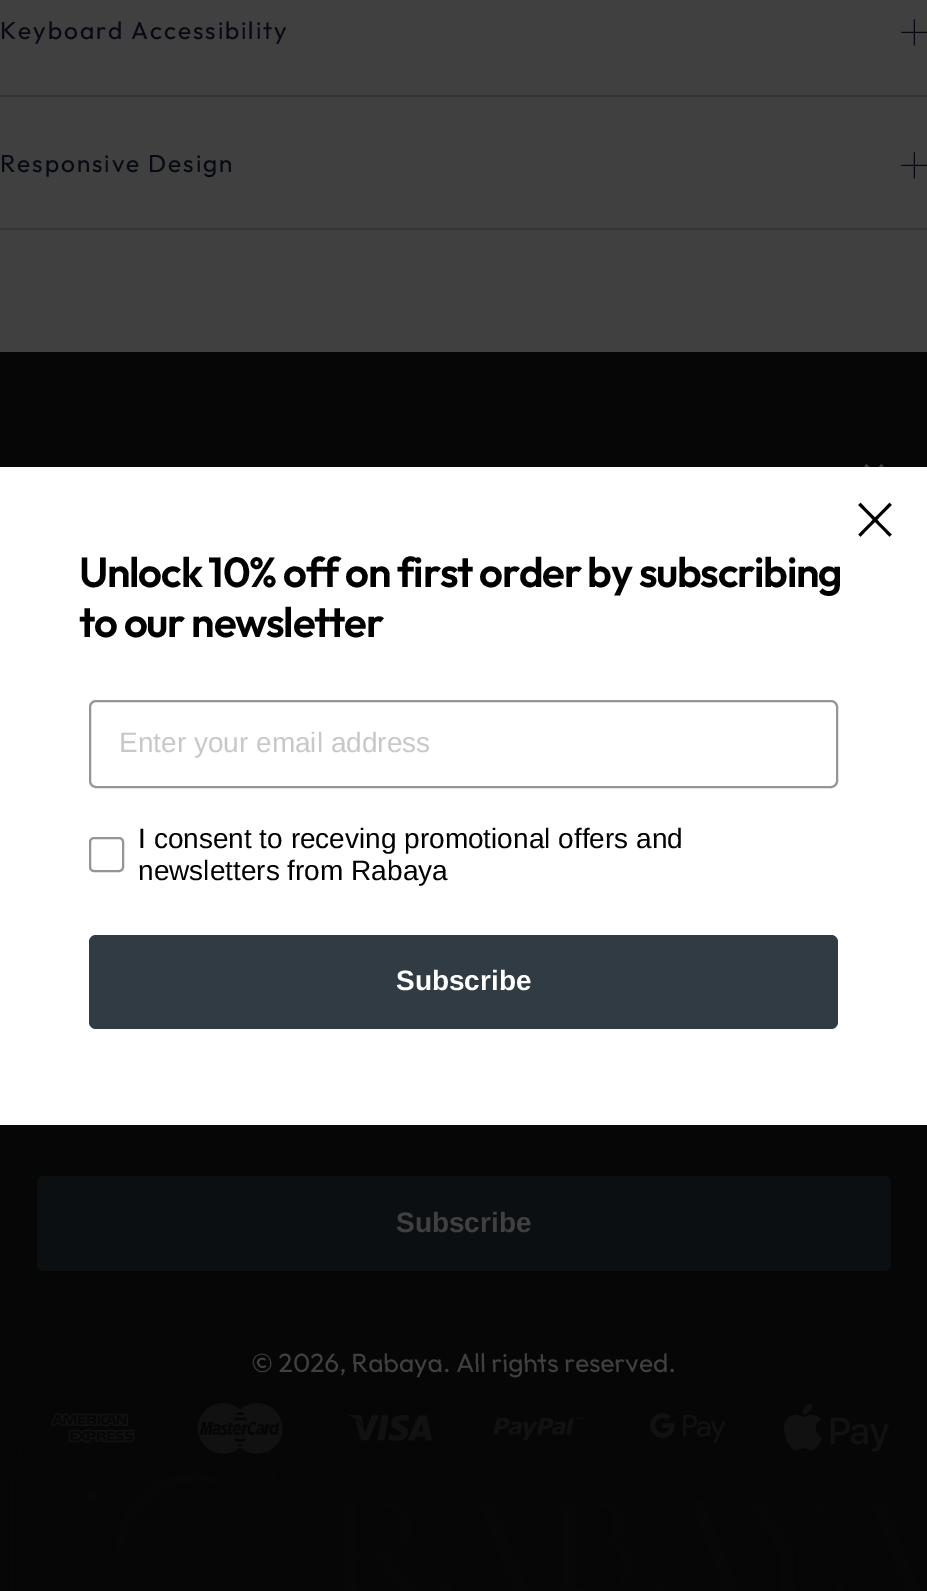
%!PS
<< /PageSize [927 1591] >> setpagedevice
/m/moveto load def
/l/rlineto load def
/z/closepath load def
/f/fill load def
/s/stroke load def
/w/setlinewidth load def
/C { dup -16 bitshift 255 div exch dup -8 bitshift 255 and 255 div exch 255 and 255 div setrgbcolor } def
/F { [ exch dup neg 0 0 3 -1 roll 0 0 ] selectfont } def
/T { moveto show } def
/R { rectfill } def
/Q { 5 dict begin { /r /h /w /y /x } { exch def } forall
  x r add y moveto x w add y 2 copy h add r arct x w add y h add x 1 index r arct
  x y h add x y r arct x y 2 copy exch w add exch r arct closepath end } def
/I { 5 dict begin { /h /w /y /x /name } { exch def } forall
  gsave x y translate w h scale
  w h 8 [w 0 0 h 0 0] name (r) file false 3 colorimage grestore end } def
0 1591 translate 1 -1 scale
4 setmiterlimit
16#404040 C
0 0 927 1591 R
16#323537 C
0 95 927 2 R
/Outfit-Thin 24.5 F
16#070913 C
0 39 m 1.9 0 (Keyboard Accessibility) ashow
(1.rgb) 901 19 26 27 I
16#323537 C
0 228 927 2 R
16#070913 C
0 172 m 1.9 0 (Responsive Design) ashow
(1.rgb) 901 152 26 27 I
16#060606 C
0 352 927 1239 R
16#404040 C
864.5 466.5 m 9.5 9 l 9.5 -9 l -2 -2.5 l -7.5 7.5 l -7.5 -7.5 l z eofill
16#0C0F11 C
37 1176 854 95 7 Q f
/LiberationSans-Bold 28 F
16#404040 C
(Subscribe) 396 1232 T
/Outfit-Thin 26.25 F
(© 2026, Rabaya. All rights reserved.) 251 1372 T
(2.rgb) 51 1413 84 30 I
(3.rgb) 198 1403 85 51 I
(4.rgb) 348 1415 84 26 I
(5.rgb) 494 1416 88 25 I
(6.rgb) 650 1413 76 30 I
(7.rgb) 784 1404 105 48 I
(8.rgb) 10 1364 913 227 I
16#FFFFFF C
0 467 927 658 R
16#000000 C
2.9 w
2 setlinecap
889.5 505 m -29 29.5 l 860.5 505 m 29 29.5 l s
/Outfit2-Thin 42 F
79 587 m -1.25 0 (Unlock 10% off on first order by subscribing) ashow
79 637 m -1.25 0 (to our newsletter) ashow
16#949596 C
2 w
0 setlinecap
90 701 747 86 6 Q s
/LiberationSans-Regular 28 F
16#C8C8C8 C
(Enter your email address) 119 752 T
16#949596 C
90 838 33 33 4 Q s
16#000000 C
(I consent to receving promotional offers and) 138 848 T
(newsletters from Rabaya) 138 880 T
16#303B43 C
89 935 749 94 7 Q f
/LiberationSans-Bold 28 F
16#FFFFFF C
(Subscribe) 396 990 T
showpage
